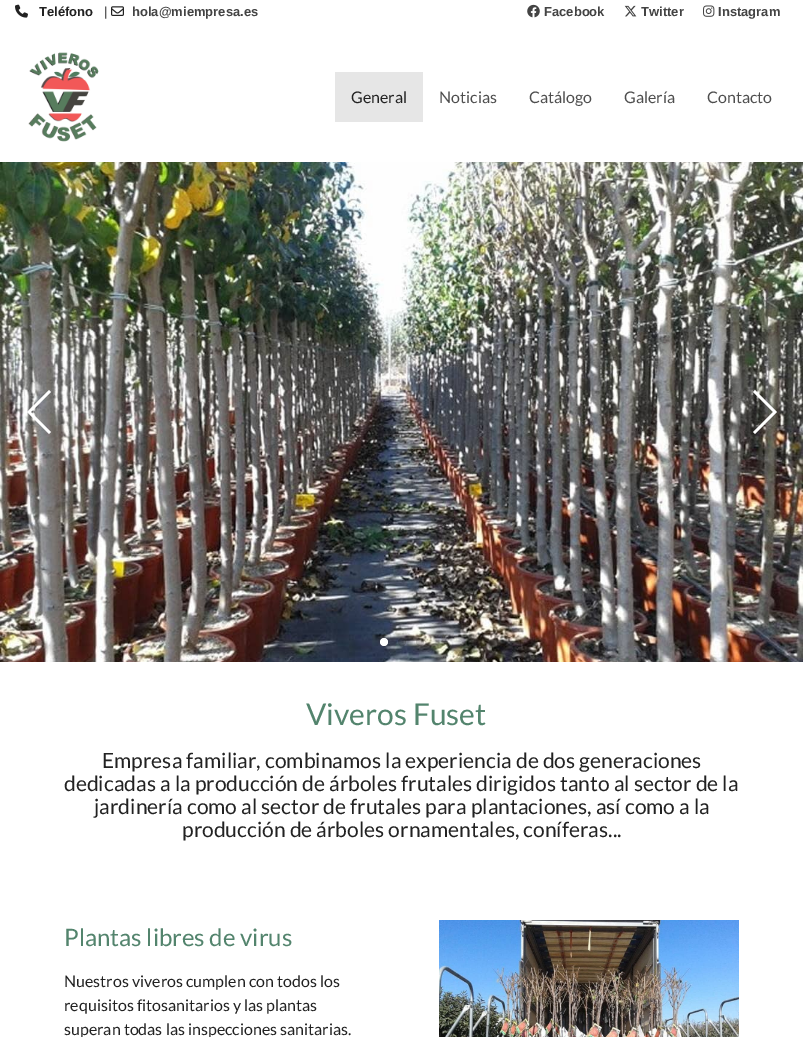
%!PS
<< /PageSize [803 1037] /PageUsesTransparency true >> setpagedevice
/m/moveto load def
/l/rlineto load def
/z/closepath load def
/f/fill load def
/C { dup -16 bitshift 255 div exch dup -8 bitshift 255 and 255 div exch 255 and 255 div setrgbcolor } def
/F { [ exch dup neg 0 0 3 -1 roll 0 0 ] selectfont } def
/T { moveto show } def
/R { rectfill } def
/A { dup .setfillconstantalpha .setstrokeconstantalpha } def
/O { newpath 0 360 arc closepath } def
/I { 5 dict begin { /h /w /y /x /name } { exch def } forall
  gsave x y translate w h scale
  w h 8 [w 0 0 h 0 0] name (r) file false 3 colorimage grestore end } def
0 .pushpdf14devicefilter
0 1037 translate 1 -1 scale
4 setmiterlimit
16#FFFFFF C
0 0 803 1037 R
(1.rgb) 15 4 13 14 I
/LiberationSans-Bold 13 F
16#222222 C
(Teléfono) 39 16 T
/LiberationSans-Regular 13 F
(|) 104 16 T
(2.rgb) 111 6 13 10 I
/LiberationSans-Bold 13 F
16#434343 C
(hola@miempresa.es) 132 16 T
(3.rgb) 527 4 13 14 I
(Facebook) 544 16 T
(4.rgb) 624 5 13 12 I
(Twitter) 641 16 T
(5.rgb) 703 5 12 12 I
(Instagram) 718 16 T
(6.rgb) 28 52 71 90 I
16#E6E6E6 C
335 72 88 50 R
/Lato-Regular 16 F
16#222222 C
(General) 351 103 T
16#4E4E4E C
(Noticias) 439 103 T
(Catálogo) 529 103 T
(Galería) 624 103 T
(Contacto) 707 103 T
(7.rgb) 0 162 803 500 I
16#FFFFFF C
27 412 m 22 -22 l 2 2 l -20 20 l 20 20 l -2 2 l z f
777 412 m -22 22 l -2 -2 l 20 -20 l -20 -20 l 2 -2 l z f
384 642 4 O f
0.2 A
16#000000 C
402 642 4 O f
420 642 4 O f
/Lato-Regular 30 F
1 A
16#53846D C
(Viveros Fuset) 306 725 T
/Lato-Regular 21 F
16#222222 C
(Empresa familiar, combinamos la experiencia de dos generaciones) 102 768 T
(dedicadas a la producción de árboles frutales dirigidos tanto al sector de la) 64 791 T
(jardinería como al sector de frutales para plantaciones, así como a la) 94 814 T
(producción de árboles ornamentales, coníferas...) 182 837 T
/Lato-Regular 24 F
16#53846D C
(Plantas libres de virus) 64 946 T
/Lato-Regular 16 F
16#222222 C
(Nuestros viveros cumplen con todos los) 64 987 T
(requisitos fitosanitarios y las plantas) 64 1011 T
(superan todas las inspecciones sanitarias.) 64 1035 T
(8.rgb) 439 920 300 117 I
.poppdf14devicefilter showpage
